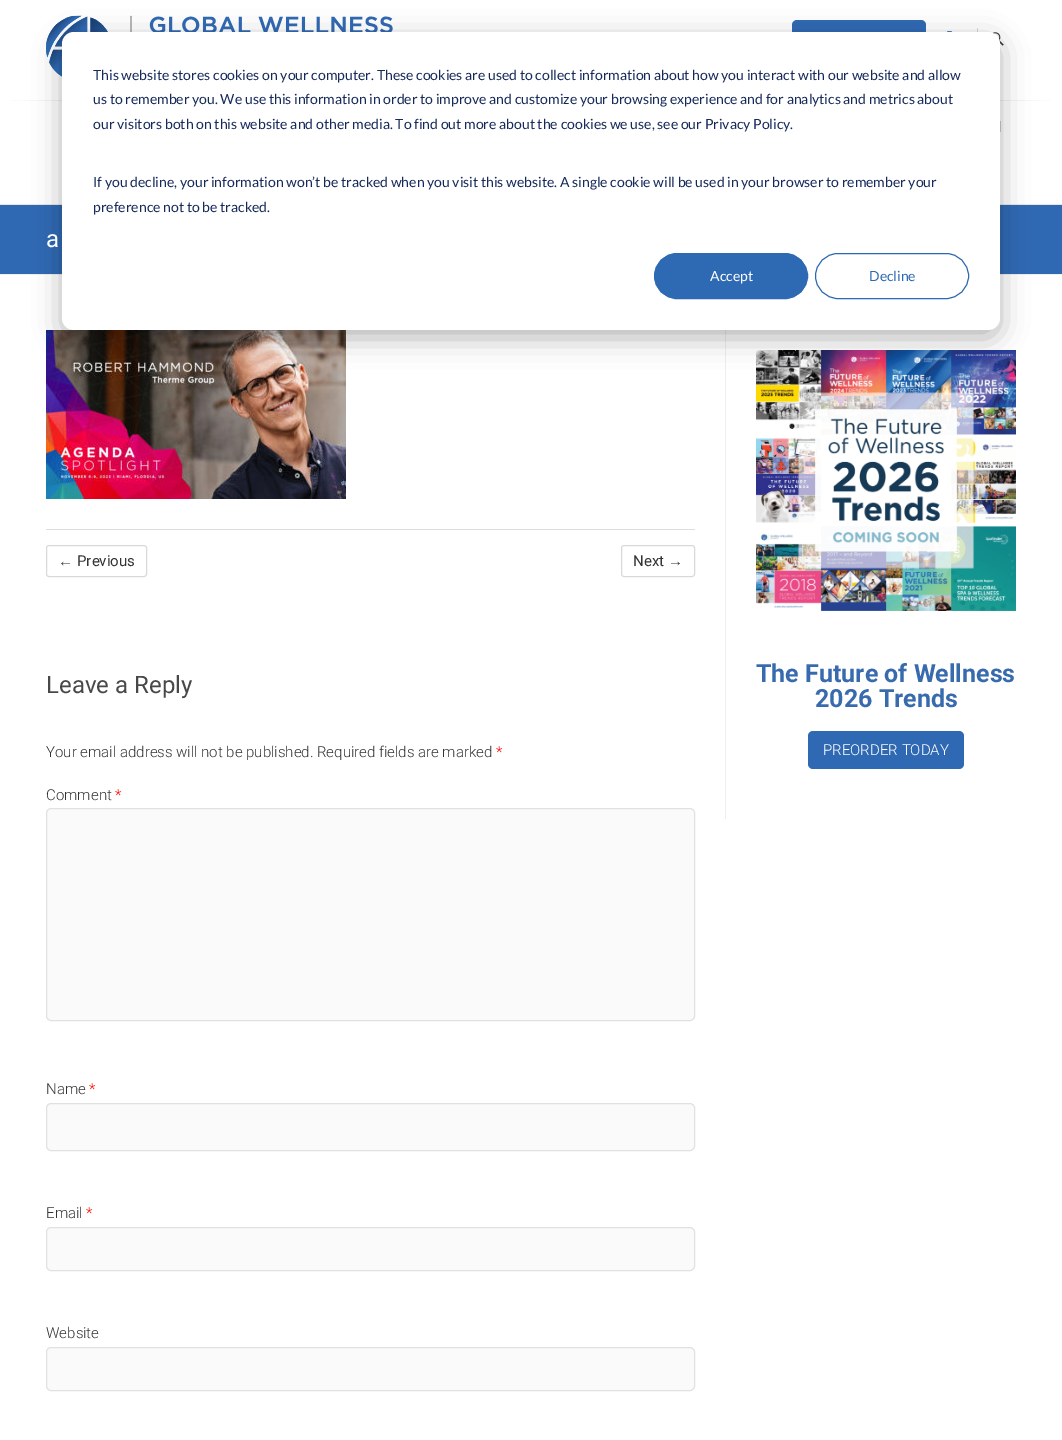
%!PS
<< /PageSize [1062 1440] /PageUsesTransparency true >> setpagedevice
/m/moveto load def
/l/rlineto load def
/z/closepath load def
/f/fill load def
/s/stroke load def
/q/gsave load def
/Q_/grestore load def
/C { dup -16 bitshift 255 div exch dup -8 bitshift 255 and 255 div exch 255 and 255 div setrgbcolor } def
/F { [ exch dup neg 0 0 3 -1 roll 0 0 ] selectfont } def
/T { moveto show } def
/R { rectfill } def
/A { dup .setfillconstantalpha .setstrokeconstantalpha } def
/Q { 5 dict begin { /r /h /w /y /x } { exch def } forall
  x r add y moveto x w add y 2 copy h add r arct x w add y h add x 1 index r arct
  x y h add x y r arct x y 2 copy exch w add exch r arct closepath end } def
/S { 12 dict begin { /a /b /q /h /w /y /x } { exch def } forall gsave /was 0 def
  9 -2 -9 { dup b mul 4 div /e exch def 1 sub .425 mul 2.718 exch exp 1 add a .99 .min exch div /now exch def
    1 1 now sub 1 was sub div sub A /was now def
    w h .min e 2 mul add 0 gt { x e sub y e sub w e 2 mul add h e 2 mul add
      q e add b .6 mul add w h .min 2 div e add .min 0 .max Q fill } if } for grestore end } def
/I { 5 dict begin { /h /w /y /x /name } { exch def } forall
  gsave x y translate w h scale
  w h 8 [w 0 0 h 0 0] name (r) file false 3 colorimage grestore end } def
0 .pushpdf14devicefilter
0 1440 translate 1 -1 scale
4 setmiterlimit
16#FFFFFF C
0 0 1062 1440 R
(1.rgb) 46 15 347 62 I
16#3069B3 C
792 20 134 38 5 Q f
(2.rgb) 947 31 5 1 I
16#D9D9D9 C
977 28 1 4 R
(3.rgb) 992 32 12 14 I
16#E6E6E6 C
0 204 1062 1 R
q 11 100 m 1040 0 l 0 1 l -1040 0 l z clip newpath
<< /ShadingType 2 /ColorSpace /DeviceRGB /Coords [0 101 1062 100] /Extend [true true] /Function << /FunctionType 3 /Domain [0 1] /Functions [<< /FunctionType 2 /Domain [0 1] /C0 [1 1 1] /C1 [.902 .902 .902] /N 1 >> << /FunctionType 2 /Domain [0 1] /C0 [.902 .902 .902] /C1 [.902 .902 .902] /N 1 >> << /FunctionType 2 /Domain [0 1] /C0 [.902 .902 .902] /C1 [1 1 1] /N 1 >>] /Bounds [.1 .9] /Encode [0 1 0 1 0 1] >> >> shfill Q_
16#CCCCCC C
1000 121 1 11 R
16#3069B3 C
0 205 1062 69 R
16#EEEEEE C
0 274 1062 1 R
(4.rgb) 46 330 300 169 I
725 330 1 489 R
(5.rgb) 756 350 260 261 I
16#000000 C
62 40 938 298 12 14 .28 S
16#FFFFFF C
62 32 938 298 12 Q f
/Lato-Regular 14 F
16#15295A C
(This website stores cookies on your computer. These cookies are used to collect information about how you interact with our website and allow) 93 80 T
(us to remember you. We use this information in order to improve and customize your browsing experience and for analytics and metrics about) 93 104 T
(our visitors both on this website and other media. To find out more about the cookies we use, see our Privacy Policy.) 93 129 T
(If you decline, your information won’t be tracked when you visit this website. A single cookie will be used in your browser to remember your) 93 187 T
(preference not to be tracked.) 93 212 T
16#2E6AB3 C
654.5 253.5 153 45 22.5 Q q f Q_
s
16#FFFFFF C
(Accept) 710 281 T
16#2E6AB3 C
815.5 253.5 153 45 22.5 Q s
(Decline) 869 281 T
/Roboto-Regular 24 F
16#FFFFFF C
(a) 46 247 T
16#DDDDDD C
46 529 649 1 R
16#D9D9D9 C
46.5 545.5 100 31 2.5 Q s
/LiberationSans-Regular 15 F
16#333333 C
(←) 58 566 T
/Roboto-Regular 15 F
(Previous) 77 566 T
16#D9D9D9 C
621.5 545.5 73 31 2.5 Q s
16#333333 C
(Next) 633 566 T
/LiberationSans-Regular 15 F
(→) 668 566 T
/Roboto-Regular 24 F
16#484848 C
(Leave a Reply) 46 693 T
/Roboto-Light 15 F
16#333333 C
(Your email address will not be published. Required fields are marked) 46 757 T
16#FF0000 C
(*) 496 757 T
16#333333 C
(Comment) 46 800 T
16#FF0000 C
(*) 115 800 T
16#FAFAFA C
46.5 808.5 648 212 4.5 Q q f Q_
16#E1E1E1 C
s
16#333333 C
(Name) 46 1094 T
16#FF0000 C
(*) 89 1094 T
16#FAFAFA C
46.5 1103.5 648 47 4.5 Q q f Q_
16#E1E1E1 C
s
16#333333 C
(Email) 46 1218 T
16#FF0000 C
(*) 86 1218 T
16#FAFAFA C
46.5 1227.5 648 43 4.5 Q q f Q_
16#E1E1E1 C
s
16#333333 C
(Website) 46 1338 T
16#FAFAFA C
46.5 1347.5 648 43 4.5 Q q f Q_
16#E1E1E1 C
s
/Roboto-Bold 25 F
16#386AAE C
(The Future of Wellness) 756 682 T
(2026 Trends) 815 707 T
16#3069B3 C
808 731 156 38 5 Q f
/Roboto-Light 15 F
16#FFFFFF C
(PREORDER TODAY) 823 755 T
.poppdf14devicefilter showpage
